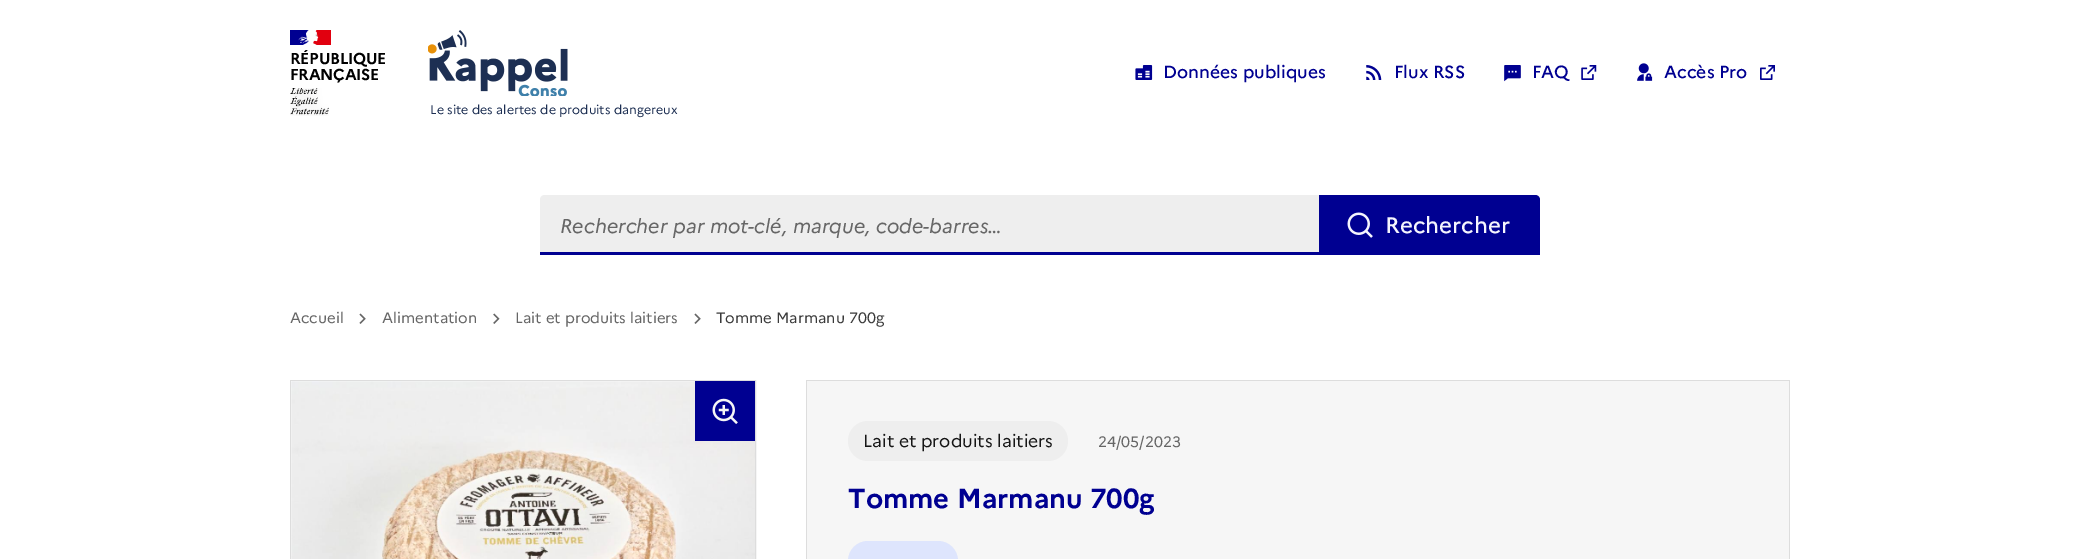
%!PS
<< /PageSize [2080 559] >> setpagedevice
/m/moveto load def
/l/rlineto load def
/c/rcurveto load def
/z/closepath load def
/f/fill load def
/C { dup -16 bitshift 255 div exch dup -8 bitshift 255 and 255 div exch 255 and 255 div setrgbcolor } def
/F { [ exch dup neg 0 0 3 -1 roll 0 0 ] selectfont } def
/T { moveto show } def
/R { rectfill } def
/Q { 5 dict begin { /r /h /w /y /x } { exch def } forall
  x r add y moveto x w add y 2 copy h add r arct x w add y h add x 1 index r arct
  x y h add x y r arct x y 2 copy exch w add exch r arct closepath end } def
/I { 5 dict begin { /h /w /y /x /name } { exch def } forall
  gsave x y translate w h scale
  w h 8 [w 0 0 h 0 0] name (r) file false 3 colorimage grestore end } def
0 559 translate 1 -1 scale
4 setmiterlimit
16#FFFFFF C
0 0 2080 559 R
16#000091 C
290 30 19 15 R
16#E1000F C
313 30 18 15 R
(1.rgb) 298 30 21 15 I
/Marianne-Bold 15.75 F
16#000000 C
290 64 m -.25 0 (RÉPUBLIQUE) ashow
290 80 m -.25 0 (FRANÇAISE) ashow
(2.rgb) 290 88 39 28 I
(3.rgb) 428 30 140 66 I
/Marianne-Regular 12.5 F
16#1D2F53 C
(Le site des alertes de produits dangereux) 430 114 T
(4.rgb) 1135 65 18 15 I
/Marianne-Medium 17.5 F
16#000091 C
(Données publiques) 1163 78 T
(5.rgb) 1366 65 16 15 I
(Flux RSS) 1394 78 T
(6.rgb) 1504 65 17 17 I
(FAQ) 1532 78 T
(7.rgb) 1581 65 16 15 I
(8.rgb) 1637 63 16 18 I
(Accès Pro) 1664 78 T
(9.rgb) 1760 65 15 15 I
16#EEEEEE C
545 195 m 774 0 l 0 60 l -779 0 l 0 -55 l 0 -3 2 -5 5 -5 c z f
16#000091 C
540 252 779 3 R
/Marianne-Italic 20 F
16#666666 C
(Rechercher par mot-clé, marque, code-barres…) 560 233 T
16#000091 C
1319 195 m 216 0 l 3 0 5 2 5 5 c 0 55 l -221 0 l z f
(10.rgb) 1347 212 26 26 I
/Marianne-Medium 22.5 F
16#F5F5FE C
(Rechercher) 1385 233 T
/Marianne-Regular 15 F
16#666666 C
(Accueil) 290 323 T
(11.rgb) 359 313 7 11 I
(Alimentation) 382 323 T
(12.rgb) 493 313 7 11 I
(Lait et produits laitiers) 515 323 T
(11.rgb) 694 313 7 11 I
16#3A3A3A C
(Tomme Marmanu 700g) 716 323 T
16#DDDDDD C
290.5 380.5 465 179 rectstroke
(13.rgb) 291 381 464 178 I
16#000091 C
695 381 60 60 R
(14.rgb) 712 398 26 26 I
16#F6F6F6 C
807 381 982 178 R
16#DDDDDD C
806 380 984 1 R
1789 380 1 179 R
806 380 1 179 R
16#EEEEEE C
848 421 220 40 20 Q f
/Marianne-Regular 17.5 F
16#161616 C
(Lait et produits laitiers) 863 447 T
/Marianne-Regular 15 F
16#666666 C
(24/05/2023) 1098 447 T
/Marianne-Bold 27.5 F
16#000091 C
(Tomme Marmanu 700g) 848 508 T
16#DEE5FD C
848 541 110 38 20 Q f
showpage
